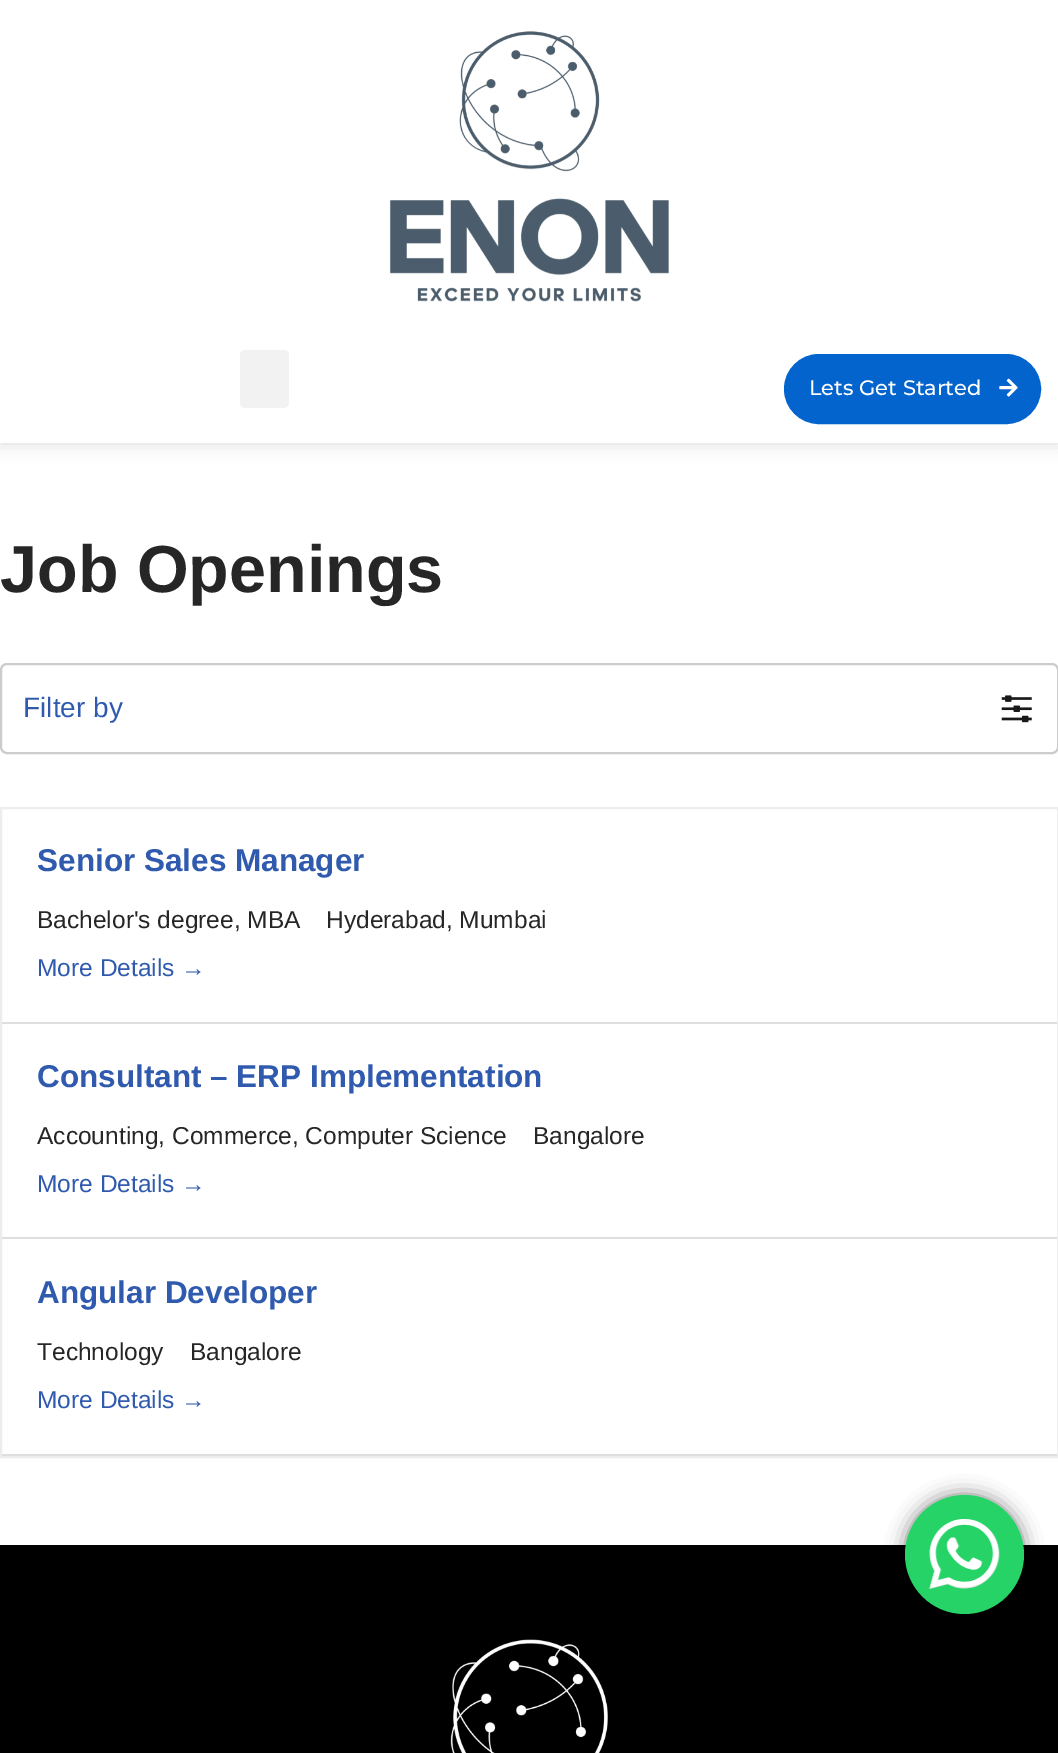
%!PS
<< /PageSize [1058 1753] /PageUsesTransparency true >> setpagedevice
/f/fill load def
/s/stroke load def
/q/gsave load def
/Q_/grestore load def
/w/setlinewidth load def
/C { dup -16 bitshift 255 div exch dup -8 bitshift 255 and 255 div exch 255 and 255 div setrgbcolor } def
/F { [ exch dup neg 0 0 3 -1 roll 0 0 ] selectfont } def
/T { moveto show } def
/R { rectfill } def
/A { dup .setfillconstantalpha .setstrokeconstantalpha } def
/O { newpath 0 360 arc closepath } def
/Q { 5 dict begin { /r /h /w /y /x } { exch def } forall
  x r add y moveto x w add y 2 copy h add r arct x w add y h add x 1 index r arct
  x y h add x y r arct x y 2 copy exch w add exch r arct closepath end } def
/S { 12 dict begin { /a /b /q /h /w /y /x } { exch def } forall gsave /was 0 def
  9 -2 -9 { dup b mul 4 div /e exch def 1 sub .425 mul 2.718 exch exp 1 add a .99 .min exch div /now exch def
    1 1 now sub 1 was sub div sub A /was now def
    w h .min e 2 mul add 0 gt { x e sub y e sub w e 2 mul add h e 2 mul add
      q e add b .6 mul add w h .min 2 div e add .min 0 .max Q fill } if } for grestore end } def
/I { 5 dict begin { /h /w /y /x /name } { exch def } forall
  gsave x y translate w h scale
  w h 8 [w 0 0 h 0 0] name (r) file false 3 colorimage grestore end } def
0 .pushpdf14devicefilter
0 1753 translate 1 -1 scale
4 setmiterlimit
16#FFFFFF C
0 0 1058 1753 R
16#000000 C
0 0 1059 443 0 9 .15 S
16#FFFFFF C
0 0 1058 443 R
(1.rgb) 389 31 280 271 I
16#F2F2F2 C
240 350 49 58 5 Q f
16#0464CD C
786 356 253 66 33 Q q f Q_
4 w
s
/Montserrat-Medium 21 F
16#FFFFFF C
(Lets Get Started) 809 395 T
(2.rgb) 999 378 19 19 I
/LiberationSans-Bold 66.5 F
16#272626 C
(Job Openings) 0 592 T
16#CCCCCC C
2 w
1 664 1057 89 6 Q s
/LiberationSans-Regular 28 F
16#2F5AAE C
(Filter by) 23 717 T
(3.rgb) 1001 695 31 28 I
16#EDEDED C
1 808 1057 649 rectstroke
16#DEDEDE C
2 1022 1055 2 R
/LiberationSans-Bold 31.5 F
16#2F5AAE C
(Senior Sales Manager) 37 871 T
/LiberationSans-Regular 24.5 F
16#272626 C
(Bachelor's degree, MBA) 37 928 T
(Hyderabad, Mumbai) 326 928 T
16#2F5AAE C
(More Details →) 37 976 T
16#DEDEDE C
2 1237 1055 2 R
/LiberationSans-Bold 31.5 F
16#2F5AAE C
(Consultant – ERP Implementation) 37 1087 T
/LiberationSans-Regular 24.5 F
16#272626 C
(Accounting, Commerce, Computer Science) 37 1144 T
(Bangalore) 533 1144 T
16#2F5AAE C
(More Details →) 37 1192 T
16#DEDEDE C
2 1454 1055 2 R
/LiberationSans-Bold 31.5 F
16#2F5AAE C
(Angular Developer) 37 1303 T
/LiberationSans-Regular 24.5 F
16#272626 C
(Technology) 37 1360 T
(Bangalore) 190 1360 T
16#2F5AAE C
(More Details →) 37 1408 T
16#000000 C
0 1545 1058 208 R
905 1495 119 119 59.5 9.5 .5 S
16#25D366 C
964.5 1554.5 59.5 O f
(4.rgb) 929 1519 71 70 I
(5.rgb) 450 1639 158 114 I
.poppdf14devicefilter showpage
